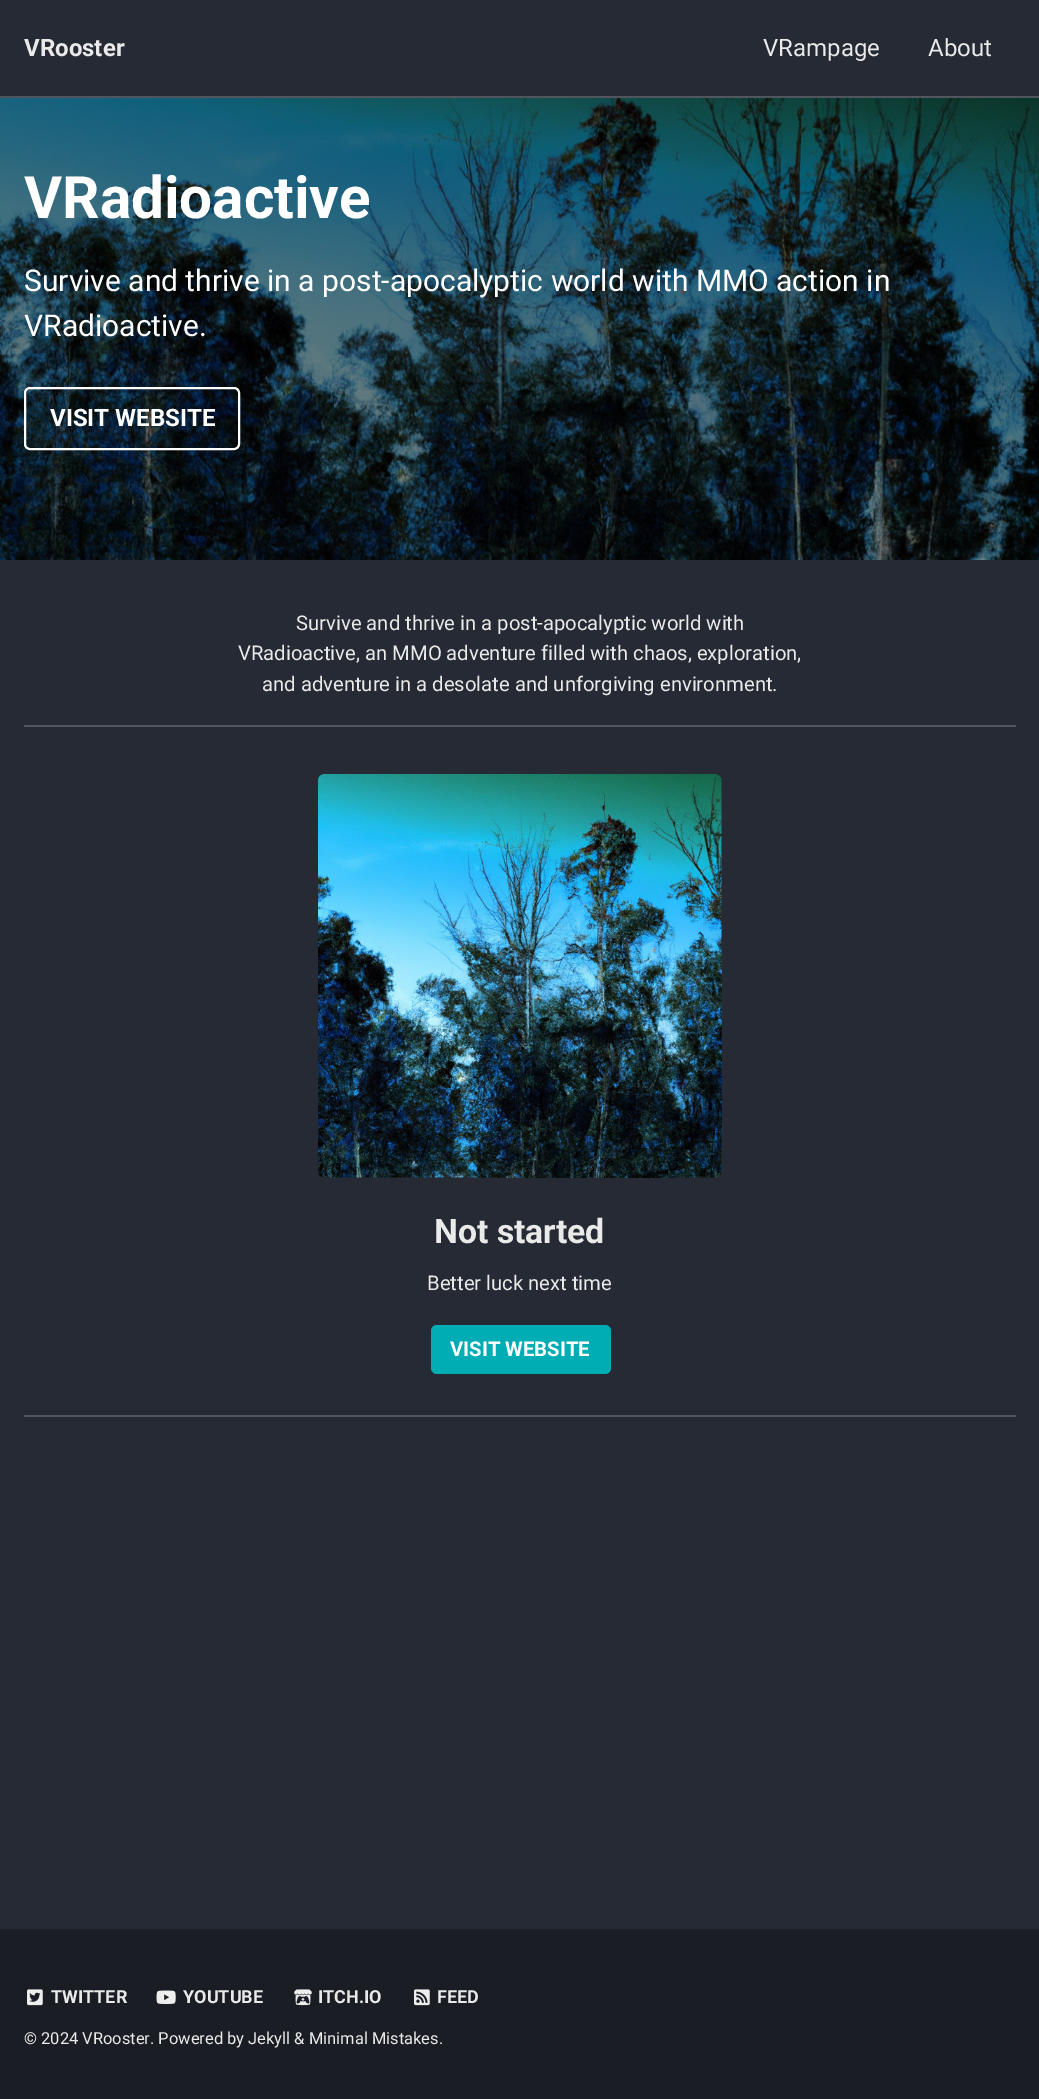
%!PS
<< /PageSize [1039 2099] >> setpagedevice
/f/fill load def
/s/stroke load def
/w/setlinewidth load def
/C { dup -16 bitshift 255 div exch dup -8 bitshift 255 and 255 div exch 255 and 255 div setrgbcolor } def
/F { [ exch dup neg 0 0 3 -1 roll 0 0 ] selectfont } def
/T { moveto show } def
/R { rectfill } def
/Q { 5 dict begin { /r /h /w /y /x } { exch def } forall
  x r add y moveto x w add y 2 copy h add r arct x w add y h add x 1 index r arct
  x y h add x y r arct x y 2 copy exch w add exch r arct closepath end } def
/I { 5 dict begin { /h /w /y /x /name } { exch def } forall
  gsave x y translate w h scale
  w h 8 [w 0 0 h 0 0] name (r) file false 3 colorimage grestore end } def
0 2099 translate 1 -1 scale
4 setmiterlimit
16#252A34 C
0 0 1039 2099 R
16#51555D C
0 96 1039 2 R
/Roboto-Bold 24 F
16#EAEAEA C
(VRooster) 24 56 T
/Roboto-Regular 24 F
(VRampage) 763 56 T
(About) 928 56 T
(1.rgb) 0 98 1039 462 I
/Roboto-Bold 58.5 F
16#FFFFFF C
(VRadioactive) 24 218 T
/Roboto-Regular 30 F
(Survive and thrive in a post-apocalyptic world with MMO action in) 24 291 T
(VRadioactive.) 24 336 T
2 w
25 388 214 61 5 Q s
/Roboto-Bold 24 F
(VISIT WEBSITE) 50 426 T
16#51555D C
24 725 992 2 R
/Roboto-Regular 20.25 F
16#EAEAEA C
(Survive and thrive in a post-apocalyptic world with) 296 630 T
(VRadioactive, an MMO adventure filled with chaos, exploration,) 238 660 T
(and adventure in a desolate and unforgiving environment.) 262 691 T
16#51555D C
24 1415 992 2 R
(2.rgb) 318 774 404 404 I
/Roboto-Bold 33.75 F
16#EAEAEA C
(Not started) 434 1243 T
/Roboto-Regular 20.25 F
(Better luck next time) 427 1290 T
16#00ADB5 C
431 1325 180 49 6 Q f
/Roboto-Bold 20.25 F
16#FFFFFF C
(VISIT WEBSITE) 450 1356 T
16#1A1D24 C
0 1929 1039 170 R
(3.rgb) 27 1989 16 17 I
/Roboto-Bold 18 F
16#EAEAEA C
(TWITTER) 51 2003 T
(4.rgb) 156 1990 20 14 I
(YOUTUBE) 183 2003 T
(5.rgb) 294 1989 18 17 I
(ITCH.IO) 318 2003 T
(6.rgb) 414 1989 16 17 I
(FEED) 437 2003 T
/Roboto-Regular 16.5 F
(© 2024 VRooster. Powered by Jekyll & Minimal Mistakes.) 24 2044 T
showpage
